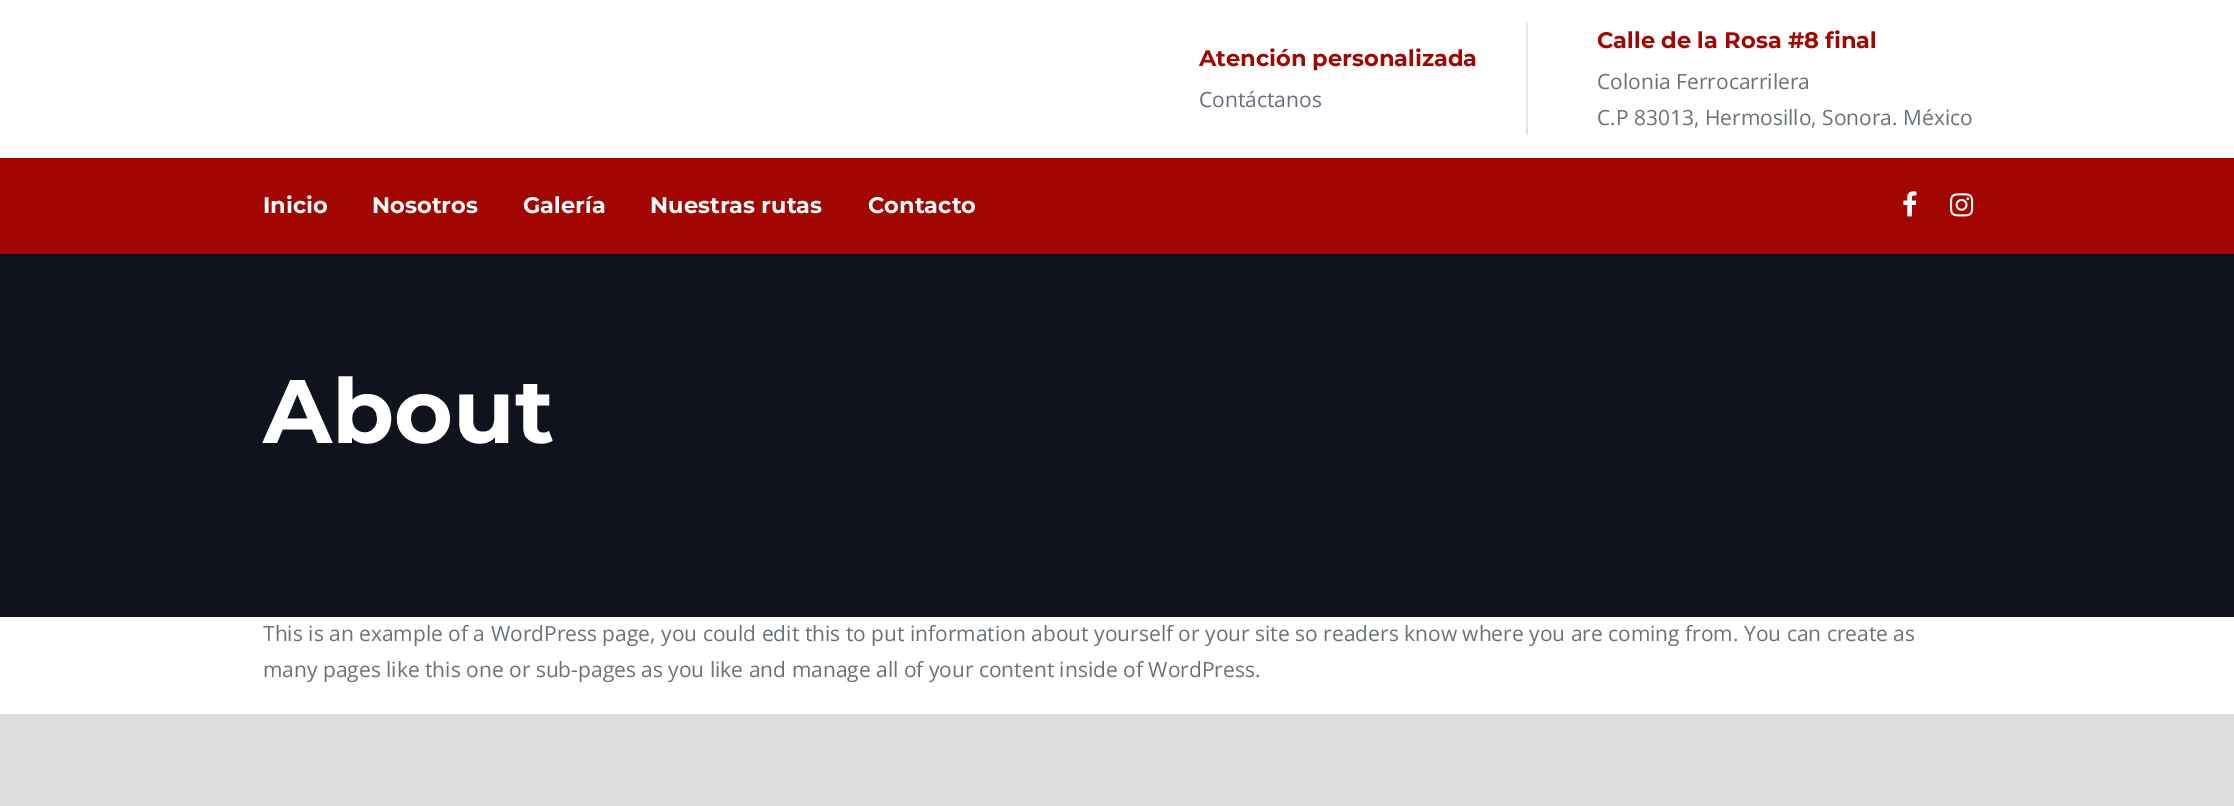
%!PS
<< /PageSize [2234 806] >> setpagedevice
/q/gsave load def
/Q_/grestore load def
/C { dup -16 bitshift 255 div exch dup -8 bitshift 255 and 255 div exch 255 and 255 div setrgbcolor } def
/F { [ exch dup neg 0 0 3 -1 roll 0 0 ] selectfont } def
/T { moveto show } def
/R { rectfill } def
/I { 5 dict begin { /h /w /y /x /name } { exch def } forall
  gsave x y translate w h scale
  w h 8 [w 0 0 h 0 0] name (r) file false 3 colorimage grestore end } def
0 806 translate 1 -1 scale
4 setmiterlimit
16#FFFFFF C
0 0 2234 806 R
/Montserrat-Bold 22.5 F
16#A10600 C
(Atención personalizada) 1199 66 T
/OpenSans-Regular 21 F
16#686D84 C
(Contáctanos) 1199 107 T
16#E4E4E4 C
1526 23 2 112 R
q
1598 23 375 112 rectclip
/Montserrat-Bold 22.5 F
16#A10600 C
(Calle de la Rosa #8 final) 1597 48 T
Q_
16#6A737A C
(Colonia Ferrocarrilera) 1597 89 T
(C.P 83013, Hermosillo, Sonora. México) 1597 125 T
16#A10600 C
0 158 2234 96 R
/Montserrat-Bold 22.5 F
16#FFFFFF C
(Inicio) 263 213 T
(Nosotros) 372 213 T
(Galería) 523 213 T
(Nuestras rutas) 650 213 T
(Contacto) 868 213 T
(1.rgb) 1903 191 14 26 I
(2.rgb) 1950 193 24 24 I
16#10131D C
0 254 2234 363 R
/Montserrat-Bold 90 F
16#FFFFFF C
(About) 263 443 T
/OpenSans-Regular 21 F
16#6A737A C
(This is an example of a WordPress page, you could edit this to put information about yourself or your site so readers know where you are coming from. You can create as) 263 641 T
(many pages like this one or sub-pages as you like and manage all of your content inside of WordPress.) 263 677 T
16#DDDDDD C
0 714 2234 92 R
showpage
